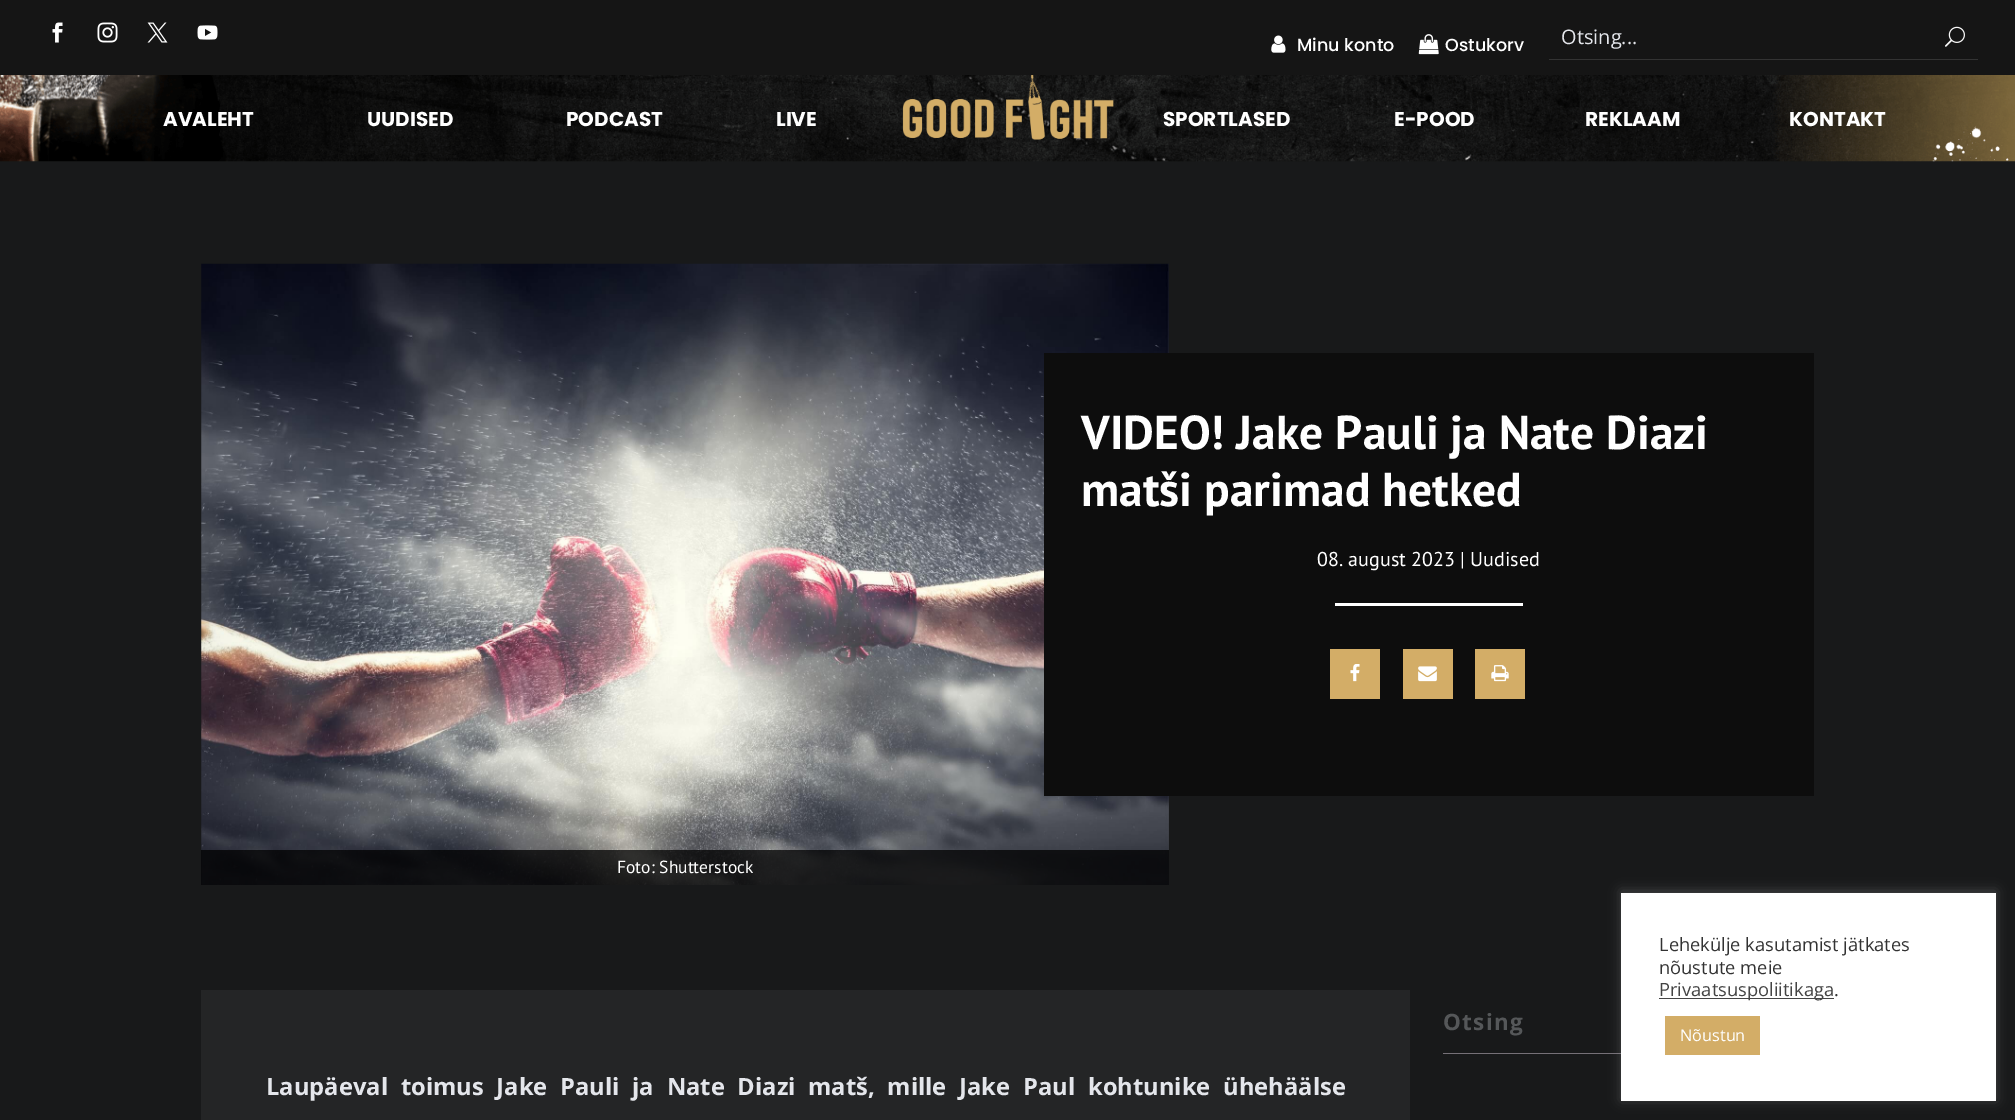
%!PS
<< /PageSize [2015 1120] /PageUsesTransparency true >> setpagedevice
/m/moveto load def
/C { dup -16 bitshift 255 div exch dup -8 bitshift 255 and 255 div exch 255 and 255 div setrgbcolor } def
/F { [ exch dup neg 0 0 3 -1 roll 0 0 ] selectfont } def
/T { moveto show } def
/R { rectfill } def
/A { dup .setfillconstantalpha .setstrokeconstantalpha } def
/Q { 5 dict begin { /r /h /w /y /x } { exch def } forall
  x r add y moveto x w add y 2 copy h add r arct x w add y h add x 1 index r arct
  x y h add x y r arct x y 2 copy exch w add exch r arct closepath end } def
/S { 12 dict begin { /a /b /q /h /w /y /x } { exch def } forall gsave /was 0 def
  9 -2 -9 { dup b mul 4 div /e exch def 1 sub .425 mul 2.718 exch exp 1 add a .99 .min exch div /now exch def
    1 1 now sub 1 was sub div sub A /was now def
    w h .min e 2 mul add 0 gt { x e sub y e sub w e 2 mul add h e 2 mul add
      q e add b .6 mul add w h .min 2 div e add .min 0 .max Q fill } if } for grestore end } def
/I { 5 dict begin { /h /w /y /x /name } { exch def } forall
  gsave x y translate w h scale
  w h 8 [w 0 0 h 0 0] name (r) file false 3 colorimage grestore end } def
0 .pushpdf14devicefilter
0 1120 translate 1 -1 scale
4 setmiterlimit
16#18191A C
0 0 2015 1120 R
16#151515 C
0 0 2015 75 R
(1.rgb) 52 22 11 21 I
(2.rgb) 97 22 21 21 I
(3.rgb) 147 22 21 21 I
(4.rgb) 197 25 21 15 I
(5.rgb) 1271 35 15 18 I
/Poppins-Medium 17.5 F
16#FFFFFF C
(Minu konto) 1297 51 T
(6.rgb) 1418 34 21 21 I
(Ostukorv) 1445 51 T
16#333333 C
1549 59 429 1 R
/OpenSans-Regular 20 F
16#E4E6EB C
(Otsing...) 1561 44 T
(7.rgb) 1945 26 20 21 I
(8.rgb) 0 75 2015 87 I
/Poppins-Bold 20 F
16#FFFFFF C
(AVALEHT) 163 126 T
(UUDISED) 367 126 T
(PODCAST) 566 126 T
(LIVE) 776 126 T
(9.rgb) 902 75 212 65 I
(SPORTLASED) 1163 126 T
(E-POOD) 1394 126 T
(REKLAAM) 1585 126 T
(KONTAKT) 1789 126 T
(13.rgb) 201 263 968 622 I
16#0D0D0D C
1044 353 770 443 R
/PTSans-Bold 47.5 F
16#FFFFFF C
(VIDEO! Jake Pauli ja Nate Diazi) 1081 449 T
(matši parimad hetked) 1081 506 T
/PTSans-Regular 20 F
(08. august 2023 | Uudised) 1317 566 T
1335 603 188 3 R
16#D3AD67 C
1330 649 50 50 R
(10.rgb) 1350 664 10 18 I
1403 649 50 50 R
(11.rgb) 1418 666 19 16 I
1475 649 50 50 R
(12.rgb) 1491 665 18 17 I
0.75 A
16#000000 C
201 850 968 35 R
/PTSans-Regular 17.5 F
1 A
16#FFFFFF C
(Foto: Shutterstock) 617 873 T
16#757077 C
1443 1053 178 1 R
/OpenSans-Bold 22.5 F
16#555759 C
1443 1030 m 1.25 0 (Otsing) ashow
16#242526 C
201 990 1209 130 R
/OpenSans-Bold 23.75 F
16#E4E6EB C
266 1095 m 6.6 0 32 (Laupäeval toimus Jake Pauli ja Nate Diazi matš, mille Jake Paul kohtunike ühehäälse) widthshow
16#ACABAB C
1621 891 375 209 0 6 .3 S
16#FFFFFF C
1621 893 375 208 R
/OpenSans-Regular 18.3 F
16#333333 C
(Lehekülje kasutamist jätkates) 1659 951 T
(nõustute meie) 1659 974 T
16#444444 C
1659 998 175 1 R
(Privaatsuspoliitikaga) 1659 996 T
16#333333 C
(.) 1834 996 T
16#D3AD67 C
1665 1016 95 39 R
/OpenSans-Regular 16.25 F
16#FFFFFF C
(Nõustun) 1680 1041 T
.poppdf14devicefilter showpage
